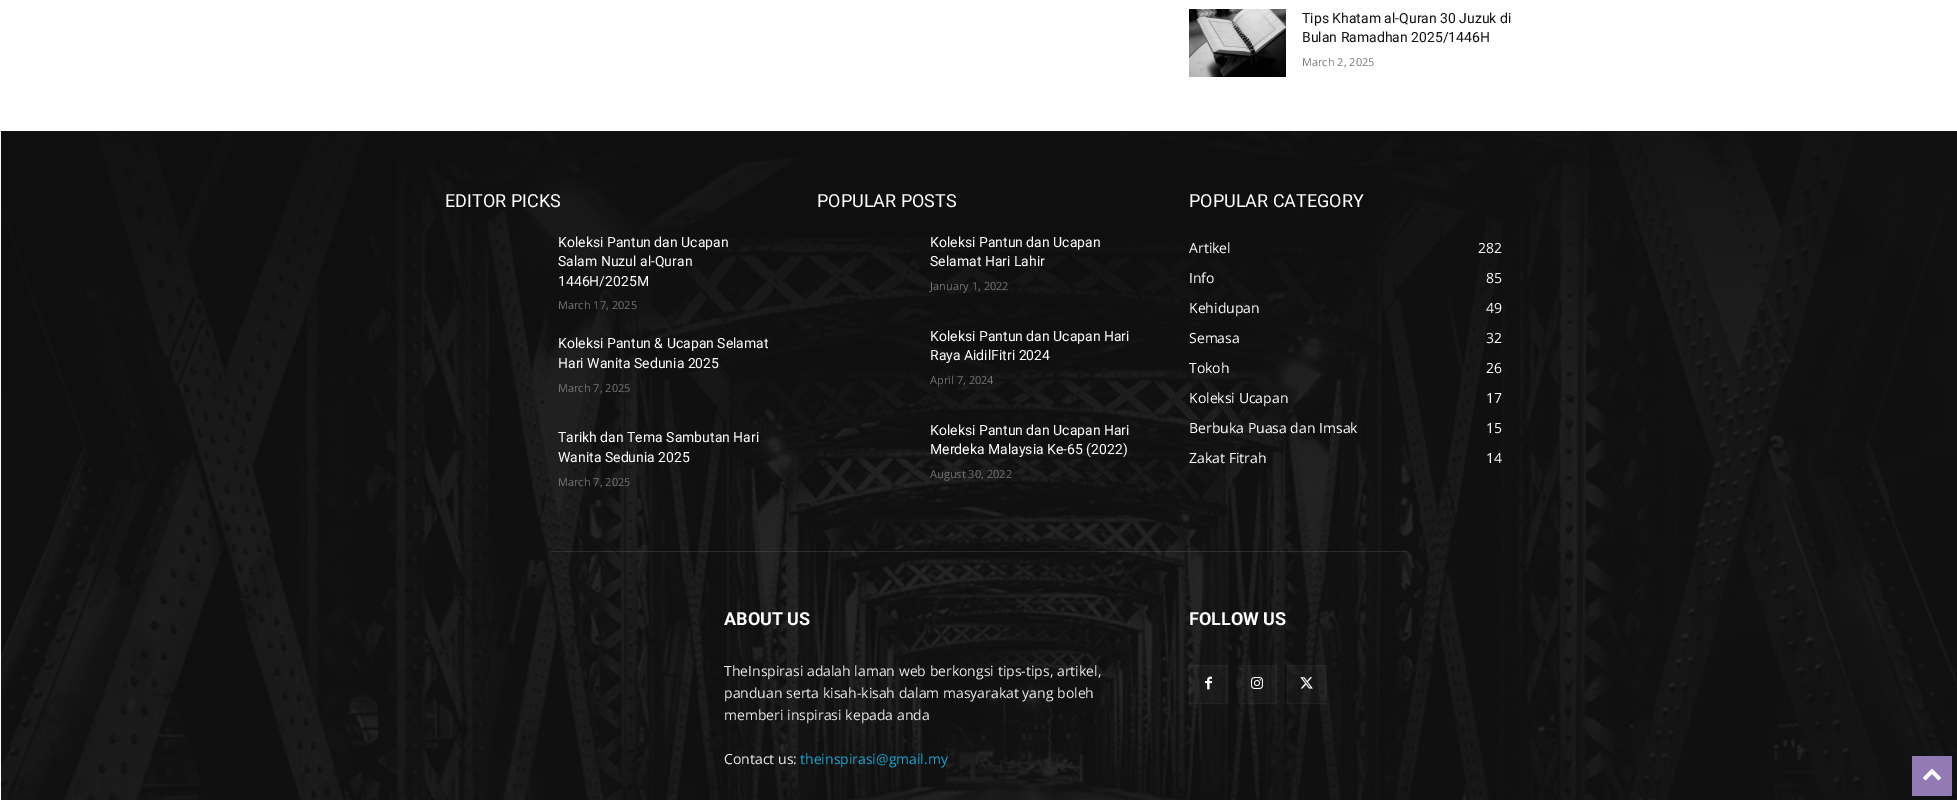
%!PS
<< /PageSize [1957 800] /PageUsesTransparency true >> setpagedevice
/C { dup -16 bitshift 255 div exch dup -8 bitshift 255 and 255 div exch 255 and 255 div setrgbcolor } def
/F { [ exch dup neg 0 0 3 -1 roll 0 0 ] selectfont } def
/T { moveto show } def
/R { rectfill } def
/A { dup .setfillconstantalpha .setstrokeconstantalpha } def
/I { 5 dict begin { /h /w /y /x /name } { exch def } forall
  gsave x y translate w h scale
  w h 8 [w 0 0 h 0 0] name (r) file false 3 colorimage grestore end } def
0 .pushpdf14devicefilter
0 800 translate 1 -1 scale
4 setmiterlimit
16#FFFFFF C
0 0 1957 800 R
(1.rgb) 1189 9 97 68 I
/Roboto-Regular 14 F
16#111111 C
(Tips Khatam al-Quran 30 Juzuk di) 1302 23 T
(Bulan Ramadhan 2025/1446H) 1302 42 T
/OpenSans-Regular 11 F
16#767676 C
(March 2, 2025) 1302 66 T
16#111111 C
1 131 1956 669 R
(2.rgb) 0 131 1957 669 I
/Roboto-Regular 18 F
16#FFFFFF C
(EDITOR PICKS) 445 207 T
/Roboto-Regular 14 F
(Koleksi Pantun dan Ucapan) 558 247 T
(Salam Nuzul al-Quran) 558 266 T
(1446H/2025M) 558 286 T
/OpenSans-Regular 11 F
16#767676 C
(March 17, 2025) 558 309 T
/Roboto-Regular 14 F
16#FFFFFF C
(Koleksi Pantun & Ucapan Selamat) 558 348 T
(Hari Wanita Sedunia 2025) 558 368 T
/OpenSans-Regular 11 F
16#767676 C
(March 7, 2025) 558 392 T
/Roboto-Regular 14 F
16#FFFFFF C
(Tarikh dan Tema Sambutan Hari) 558 442 T
(Wanita Sedunia 2025) 558 462 T
/OpenSans-Regular 11 F
16#767676 C
(March 7, 2025) 558 486 T
/Roboto-Regular 18 F
16#FFFFFF C
(POPULAR POSTS) 817 207 T
/Roboto-Regular 14 F
(Koleksi Pantun dan Ucapan) 930 247 T
(Selamat Hari Lahir) 930 266 T
/OpenSans-Regular 11 F
16#767676 C
(January 1, 2022) 930 290 T
/Roboto-Regular 14 F
16#FFFFFF C
(Koleksi Pantun dan Ucapan Hari) 930 341 T
(Raya AidilFitri 2024) 930 360 T
/OpenSans-Regular 11 F
16#767676 C
(April 7, 2024) 930 384 T
/Roboto-Regular 14 F
16#FFFFFF C
(Koleksi Pantun dan Ucapan Hari) 930 435 T
(Merdeka Malaysia Ke-65 \(2022\)) 930 454 T
/OpenSans-Regular 11 F
16#767676 C
(August 30, 2022) 930 478 T
/Roboto-Regular 18 F
16#FFFFFF C
(POPULAR CATEGORY) 1189 207 T
/OpenSans-Regular 14 F
(Artikel) 1189 253 T
(282) 1478 253 T
(Info) 1189 283 T
(85) 1486 283 T
(Kehidupan) 1189 313 T
(49) 1486 313 T
(Semasa) 1189 343 T
(32) 1486 343 T
(Tokoh) 1189 373 T
(26) 1486 373 T
(Koleksi Ucapan) 1189 403 T
(17) 1486 403 T
(Berbuka Puasa dan Imsak) 1189 433 T
(15) 1486 433 T
(Zakat Fitrah) 1189 463 T
(14) 1486 463 T
0.1 A
551 551 855 1 R
/Roboto-Bold 18 F
1 A
(ABOUT US) 724 625 T
/OpenSans-Regular 14 F
16#EAEAEA C
(TheInspirasi adalah laman web berkongsi tips-tips, artikel,) 724 676 T
(panduan serta kisah-kisah dalam masyarakat yang boleh) 724 698 T
(memberi inspirasi kepada anda) 724 720 T
(Contact us:) 724 764 T
16#1AA4CE C
(theinspirasi@gmail.my) 800 764 T
/Roboto-Bold 18 F
16#FFFFFF C
(FOLLOW US) 1189 625 T
0.03 A
1189 665 39 39 R
1189.5 665.5 38 38 rectstroke
1 A
(3.rgb) 1205 676 7 14 I
0.03 A
1238 665 39 39 R
1238.5 665.5 38 38 rectstroke
1 A
(4.rgb) 1251 677 12 12 I
0.03 A
1287 665 39 39 R
1287.5 665.5 38 38 rectstroke
1 A
(5.rgb) 1300 677 13 12 I
16#947AB4 C
1912 756 40 40 R
(6.rgb) 1923 768 18 13 I
.poppdf14devicefilter showpage
